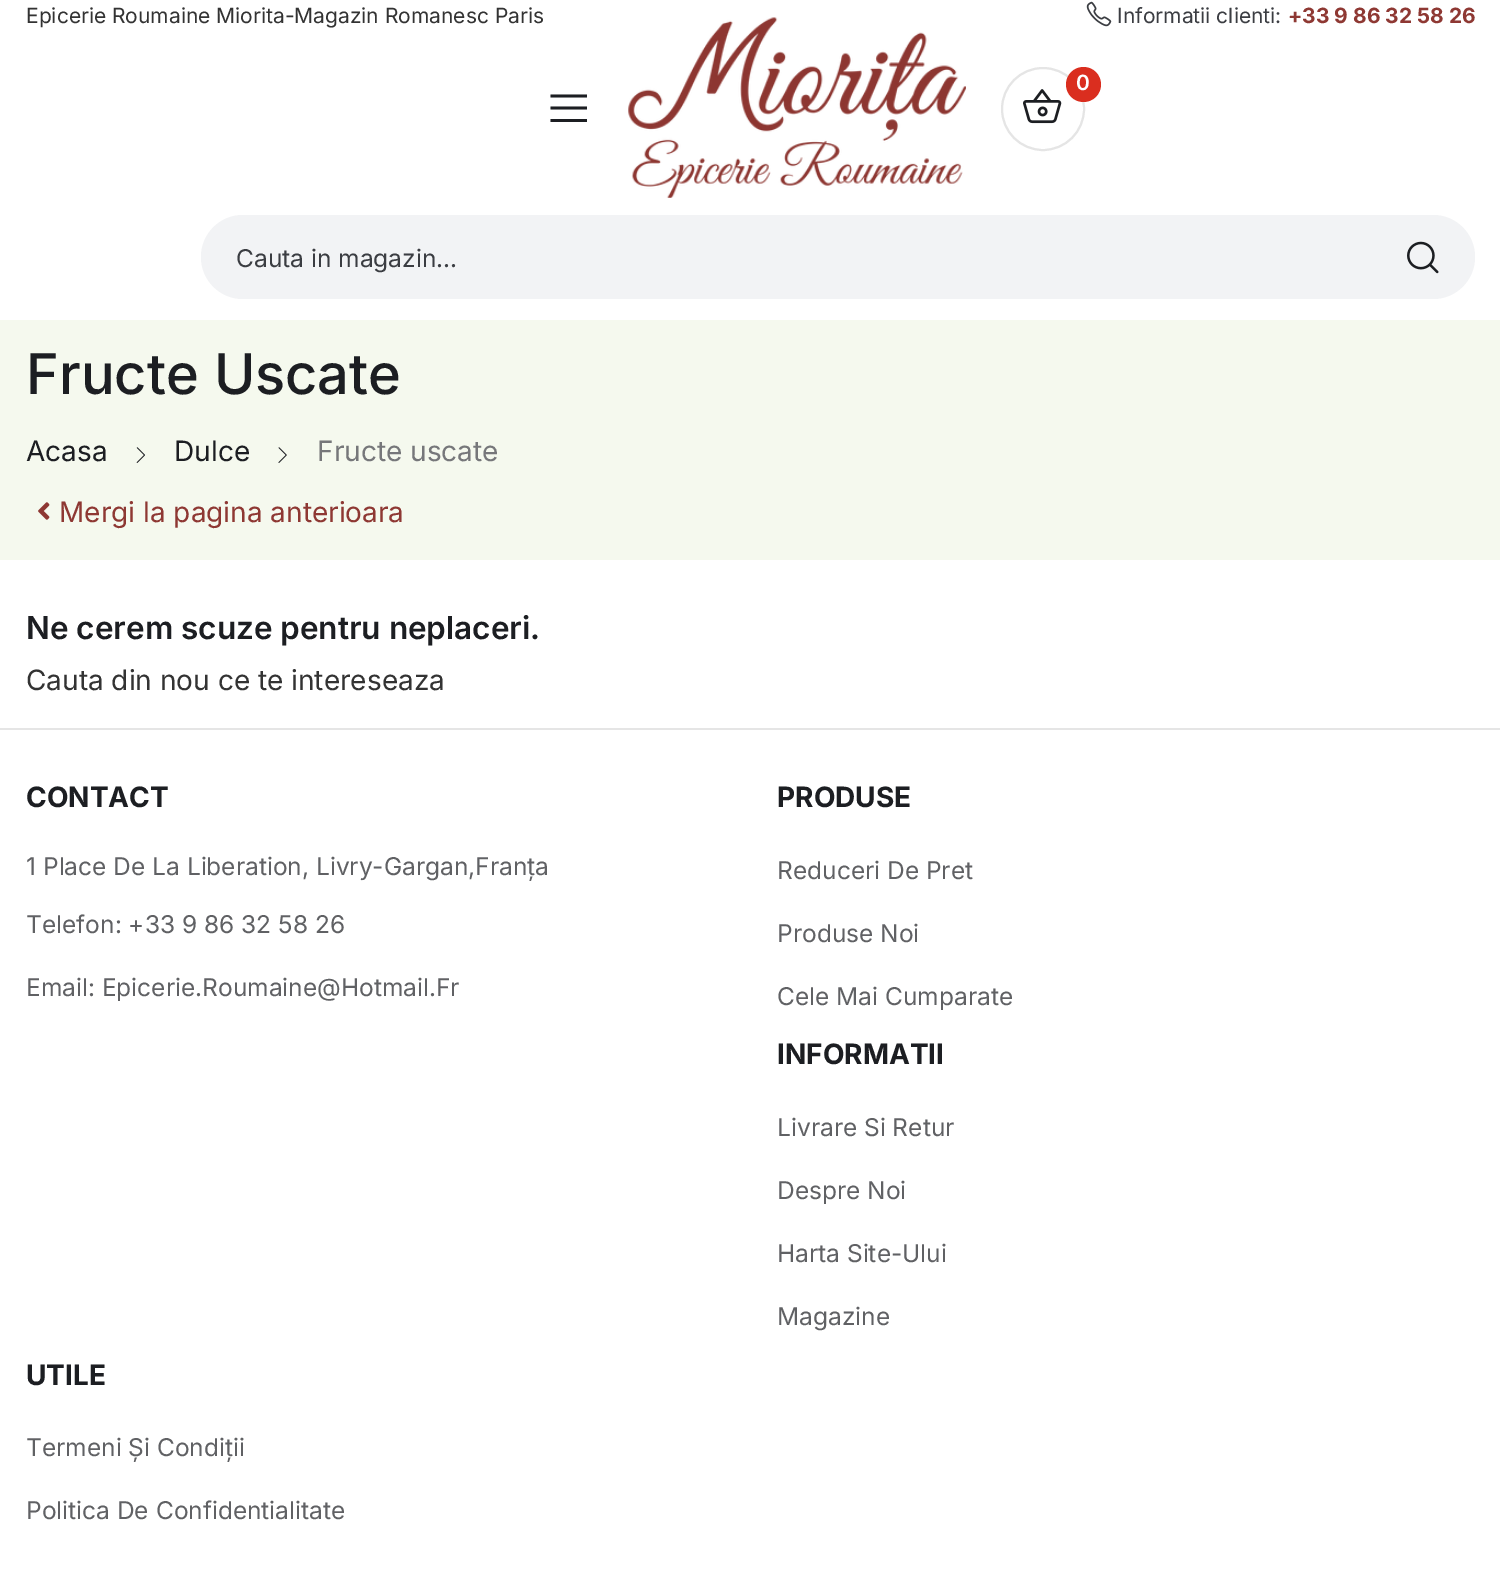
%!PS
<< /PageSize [1500 1574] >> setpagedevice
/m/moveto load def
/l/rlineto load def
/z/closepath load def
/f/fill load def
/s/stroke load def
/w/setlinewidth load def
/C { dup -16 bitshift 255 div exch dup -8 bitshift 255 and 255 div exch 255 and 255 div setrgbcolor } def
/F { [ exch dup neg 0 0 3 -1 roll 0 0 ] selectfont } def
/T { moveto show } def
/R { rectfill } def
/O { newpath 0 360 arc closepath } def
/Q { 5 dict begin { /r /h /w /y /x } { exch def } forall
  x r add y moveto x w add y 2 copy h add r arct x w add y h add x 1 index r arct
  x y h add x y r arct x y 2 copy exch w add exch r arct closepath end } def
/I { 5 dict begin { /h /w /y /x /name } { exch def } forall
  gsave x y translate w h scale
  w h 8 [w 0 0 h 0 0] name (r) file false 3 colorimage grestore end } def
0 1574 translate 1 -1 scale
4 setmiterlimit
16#FFFFFF C
0 0 1500 1574 R
/Inter-Regular 21 F
16#333333 C
(Epicerie Roumaine Miorita-Magazin Romanesc Paris) 26 23 T
(1.rgb) 1086 1 26 26 I
16#3B3D42 C
(Informatii clienti:) 1117 23 T
/Inter-Bold 21 F
16#8E3833 C
(+33 9 86 32 58 26) 1288 23 T
(2.rgb) 628 17 338 181 I
16#E5E5E5 C
2 w
1043 109 41 O s
(3.rgb) 1023 89 39 35 I
16#DA2E1F C
1083.5 84.5 17.5 O f
/Inter-SemiBold 21 F
16#FFFFFF C
(0) 1076 90 T
16#1C1E22 C
550.5 94.5 m 0 3 l 36.5 0 l 0 -3 l z 550.5 106.5 m 0 3 l 36.5 0 l 0 -3 l z 550.5 119 m 0 3 l 36.5 0 l 0 -3 l z f
16#F2F3F5 C
201 215 1274 84 42 Q f
/Inter-Regular 24.5 F
16#3B3D42 C
(Cauta in magazin...) 236 267 T
(4.rgb) 1407 241 32 33 I
16#F5F9EE C
0 320 1500 240 R
/Inter-Medium 56 F
16#1C1E22 C
(Fructe Uscate) 26 394 T
/Inter-Regular 28 F
(Acasa) 26 461 T
(5.rgb) 136 447 9 16 I
(Dulce) 174 461 T
(6.rgb) 278 447 9 16 I
16#76777A C
(Fructe uscate) 317 461 T
(7.rgb) 38 502 12 18 I
16#8E3833 C
(Mergi la pagina anterioara) 59 522 T
/Inter-SemiBold 31.5 F
16#1C1E22 C
(Ne cerem scuze pentru neplaceri.) 26 639 T
/Inter-Regular 28 F
16#333333 C
(Cauta din nou ce te intereseaza) 26 690 T
16#E5E5E5 C
0 728 1500 2 R
/Inter-Bold 28 F
16#1C1E22 C
(CONTACT) 26 807 T
/Inter-Regular 24.5 F
16#606164 C
(1 Place De La Liberation, Livry-Gargan,Franța) 26 875 T
(Telefon: +33 9 86 32 58 26) 26 933 T
(Email: Epicerie.Roumaine@Hotmail.Fr) 26 996 T
/Inter-Bold 28 F
16#1C1E22 C
(PRODUSE) 777 807 T
/Inter-Regular 24.5 F
16#606164 C
(Reduceri De Pret) 777 879 T
(Produse Noi) 777 942 T
(Cele Mai Cumparate) 777 1005 T
/Inter-Bold 28 F
16#1C1E22 C
(INFORMATII) 777 1064 T
/Inter-Regular 24.5 F
16#606164 C
(Livrare Si Retur) 777 1136 T
(Despre Noi) 777 1199 T
(Harta Site-Ului) 777 1262 T
(Magazine) 777 1325 T
/Inter-Bold 28 F
16#1C1E22 C
(UTILE) 26 1385 T
/Inter-Regular 24.5 F
16#606164 C
(Termeni Și Condiții) 26 1456 T
(Politica De Confidentialitate) 26 1519 T
showpage
